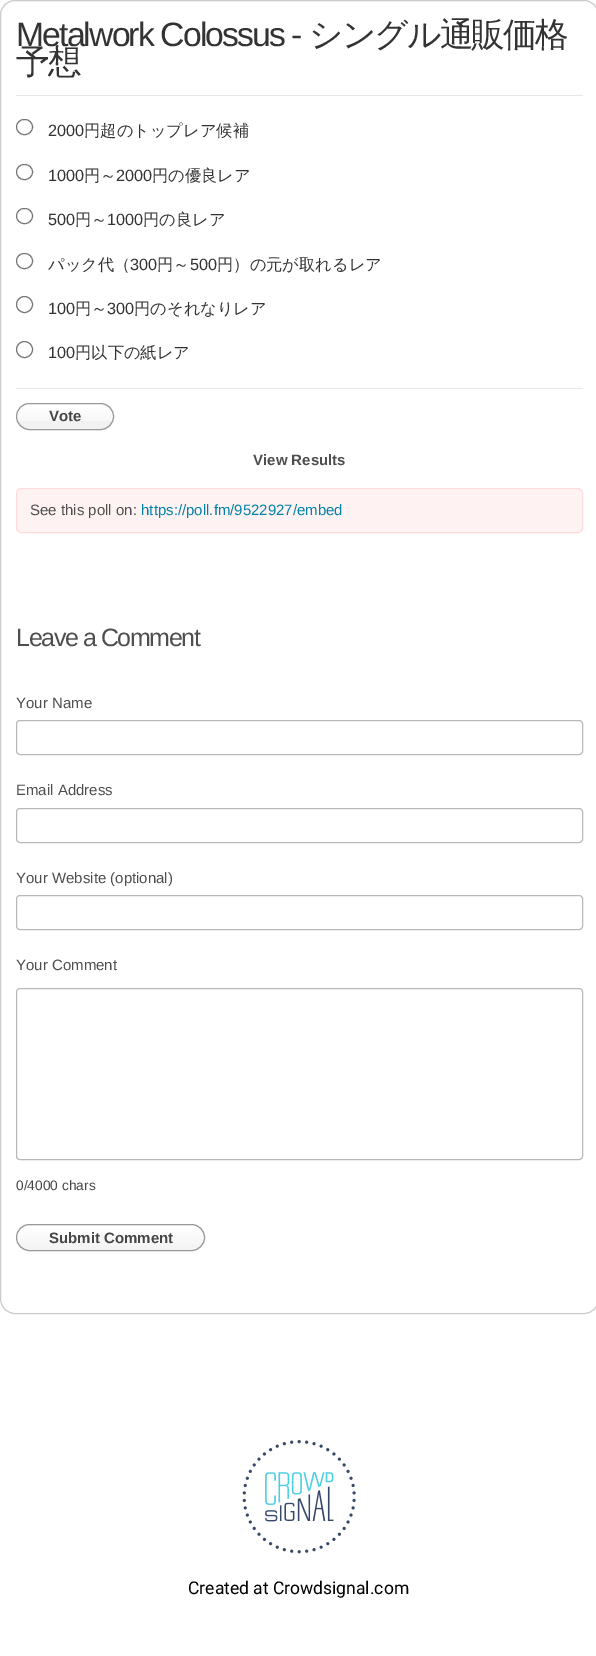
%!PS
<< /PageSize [596 1656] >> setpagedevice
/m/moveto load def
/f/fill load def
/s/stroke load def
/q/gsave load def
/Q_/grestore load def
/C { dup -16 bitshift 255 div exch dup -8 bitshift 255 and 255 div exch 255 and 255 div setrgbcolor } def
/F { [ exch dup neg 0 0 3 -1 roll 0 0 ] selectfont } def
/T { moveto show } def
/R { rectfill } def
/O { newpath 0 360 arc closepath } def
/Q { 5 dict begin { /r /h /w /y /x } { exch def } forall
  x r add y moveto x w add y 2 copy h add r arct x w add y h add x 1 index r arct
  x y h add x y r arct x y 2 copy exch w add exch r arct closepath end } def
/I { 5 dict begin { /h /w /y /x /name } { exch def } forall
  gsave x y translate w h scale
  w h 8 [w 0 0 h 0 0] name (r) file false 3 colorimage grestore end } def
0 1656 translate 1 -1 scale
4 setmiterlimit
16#FFFFFF C
0 0 596 1656 R
16#CCCCCC C
.5 .5 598 1313 14.5 Q s
/LiberationSans-Regular 33.75 F
16#333333 C
16 46 m -1.9 0 (Metalwork Colossus -) ashow
/WenQuanYiZenHei-Medium 33.75 F
309 46 m -1.9 0 (シングル通販価格) ashow
16 73 m -1.9 0 (予想) ashow
16#E8E8E8 C
16 95 567 1 R
16 388 567 1 R
16#767676 C
16.5 119.5 16 15 7.5 Q s
/LiberationSans-Regular 16.25 F
16#333333 C
(2000) 48 136 T
/WenQuanYiZenHei-Medium 16.25 F
(円超のトップレア候補) 84 136 T
16#767676 C
16.5 164.5 16 15 7.5 Q s
/LiberationSans-Regular 16.25 F
16#333333 C
(1000) 48 181 T
/WenQuanYiZenHei-Medium 16.25 F
(円～) 84 181 T
/LiberationSans-Regular 16.25 F
(2000) 116 181 T
/WenQuanYiZenHei-Medium 16.25 F
(円の優良レア) 152 181 T
16#767676 C
16.5 208.5 16 15 7.5 Q s
/LiberationSans-Regular 16.25 F
16#333333 C
(500) 48 225 T
/WenQuanYiZenHei-Medium 16.25 F
(円～) 75 225 T
/LiberationSans-Regular 16.25 F
(1000) 107 225 T
/WenQuanYiZenHei-Medium 16.25 F
(円の良レア) 143 225 T
16#767676 C
16.5 253.5 16 15 7.5 Q s
16#333333 C
(パック代（) 48 270 T
/LiberationSans-Regular 16.25 F
(300) 130 270 T
/WenQuanYiZenHei-Medium 16.25 F
(円～) 157 270 T
/LiberationSans-Regular 16.25 F
(500) 190 270 T
/WenQuanYiZenHei-Medium 16.25 F
(円）の元が取れるレア) 217 270 T
16#767676 C
24.5 304.5 8 O s
/LiberationSans-Regular 16.25 F
16#333333 C
(100) 48 314 T
/WenQuanYiZenHei-Medium 16.25 F
(円～) 75 314 T
/LiberationSans-Regular 16.25 F
(300) 107 314 T
/WenQuanYiZenHei-Medium 16.25 F
(円のそれなりレア) 134 314 T
16#767676 C
24.5 349.5 8 O s
/LiberationSans-Regular 16.25 F
16#333333 C
(100) 48 358 T
/WenQuanYiZenHei-Medium 16.25 F
(円以下の紙レア) 75 358 T
16#F2F2F2 C
16 403 98 27 13.5 Q f
(1.rgb) 16 404 98 17 I
16#999999 C
16.5 403.5 97 26 13 Q s
/LiberationSans-Bold 15 F
16#464646 C
(Vote) 49 421 T
16#4E4E4E C
(View Results) 253 465 T
16#FFF2F2 C
16.5 488.5 566 44 4.5 Q q f Q_
16#FFDCDC C
s
/LiberationSans-Regular 15 F
16#4E4E4E C
(See this poll on:) 30 515 T
16#0182A8 C
(https://poll.fm/9522927/embed) 141 515 T
/LiberationSans-Regular 25 F
16#4E4E4E C
16 646 m -1.4 0 (Leave a Comment) ashow
/LiberationSans-Regular 15 F
(Your Name) 16 708 T
16#BAB9B9 C
16.5 720.5 566 34 3.5 Q s
16#4E4E4E C
(Email Address) 16 795 T
16#BAB9B9 C
16.5 808.5 566 34 3.5 Q s
16#4E4E4E C
(Your Website \(optional\)) 16 883 T
16#BAB9B9 C
16.5 895.5 566 34 3.5 Q s
16#4E4E4E C
(Your Comment) 16 970 T
16#BAB9B9 C
16.5 988.5 566 171 3.5 Q s
/LiberationSans-Regular 13.75 F
16#464646 C
(0/4000 chars) 16 1190 T
(2.rgb) 17 1225 188 26 I
16#999999 C
16.5 1224.5 188 26 13 Q s
/LiberationSans-Bold 15 F
16#464646 C
(Submit Comment) 49 1243 T
(3.rgb) 242 1440 114 114 I
/Roboto-Regular 17.5 F
16#000000 C
(Created at Crowdsignal.com) 188 1594 T
showpage
